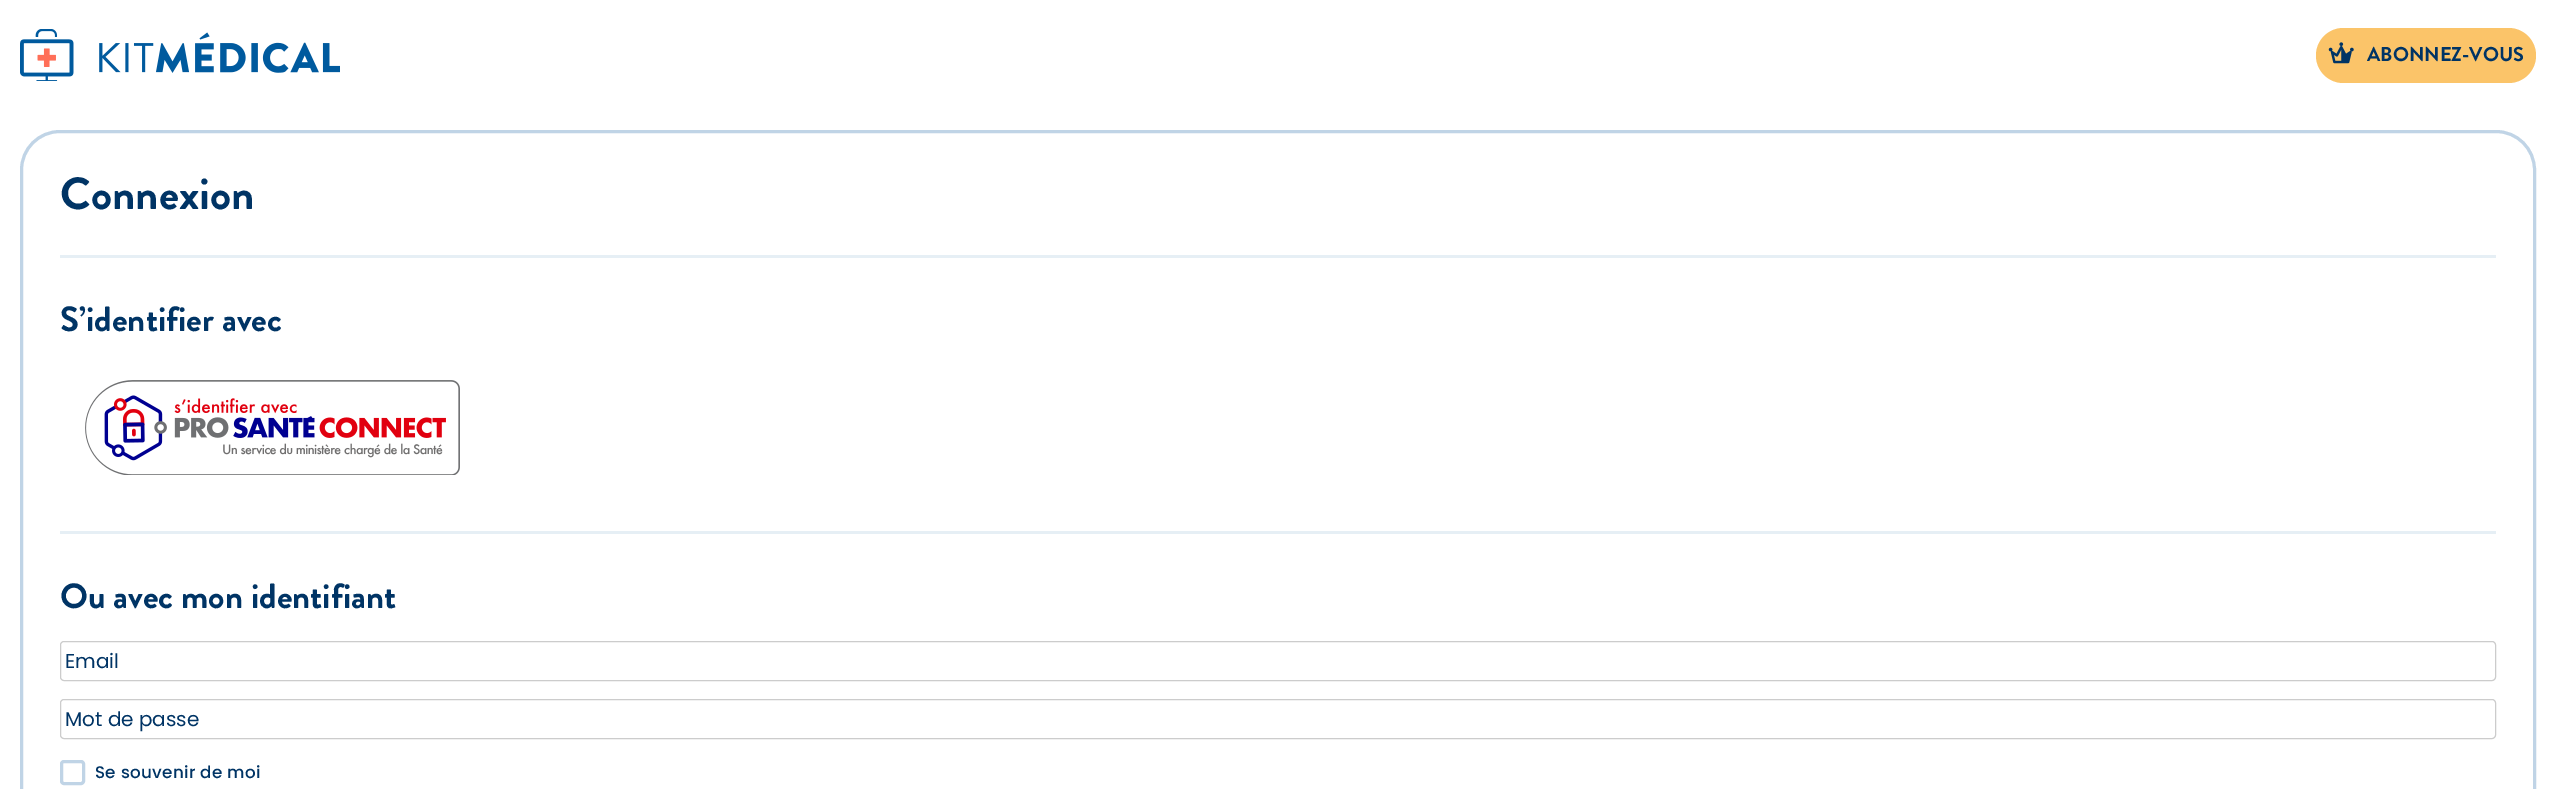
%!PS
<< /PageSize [2556 789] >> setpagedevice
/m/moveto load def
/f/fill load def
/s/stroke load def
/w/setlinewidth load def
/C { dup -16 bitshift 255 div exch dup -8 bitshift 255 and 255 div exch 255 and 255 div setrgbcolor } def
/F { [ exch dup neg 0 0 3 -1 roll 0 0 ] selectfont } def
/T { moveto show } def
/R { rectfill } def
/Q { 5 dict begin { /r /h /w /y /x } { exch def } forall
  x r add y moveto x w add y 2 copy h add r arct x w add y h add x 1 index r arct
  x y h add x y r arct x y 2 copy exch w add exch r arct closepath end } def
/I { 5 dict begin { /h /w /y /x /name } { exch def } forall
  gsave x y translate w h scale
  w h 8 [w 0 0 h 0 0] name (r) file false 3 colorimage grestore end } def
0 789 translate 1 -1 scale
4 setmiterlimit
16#FFFFFF C
0 0 2556 789 R
(1.rgb) 20 29 320 52 I
16#FBC469 C
2316 28 220 55 27.5 Q f
(2.rgb) 2328 42 26 22 I
/BrandonGrotesque-Bold 20 F
16#003465 C
(ABONNEZ-VOUS) 2367 61 T
16#C0D4E6 C
3 w
21.5 131.5 2513 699 38.5 Q s
/BrandonGrotesque-Bold 45 F
16#003465 C
(Connexion) 60 209 T
16#E6EFF5 C
60 255 2436 3 R
/BrandonGrotesque-Bold 35 F
16#003465 C
(S’identifier avec) 60 331 T
(3.rgb) 85 380 375 95 I
16#E6EFF5 C
60 531 2436 3 R
16#003465 C
(Ou avec mon identifiant) 60 608 T
16#CCCCCC C
1 w
60.5 641.5 2435 39 3.5 Q s
/Poppins-Regular 20 F
16#003465 C
(Email) 65 668 T
16#CCCCCC C
60.5 699.5 2435 39 3.5 Q s
16#003465 C
(Mot de passe) 65 726 T
16#C0D4E6 C
3 w
61.5 761.5 22 22 2.5 Q s
/Poppins-Medium 16.75 F
16#003465 C
95 778 m .3 0 (Se souvenir de moi) ashow
showpage
